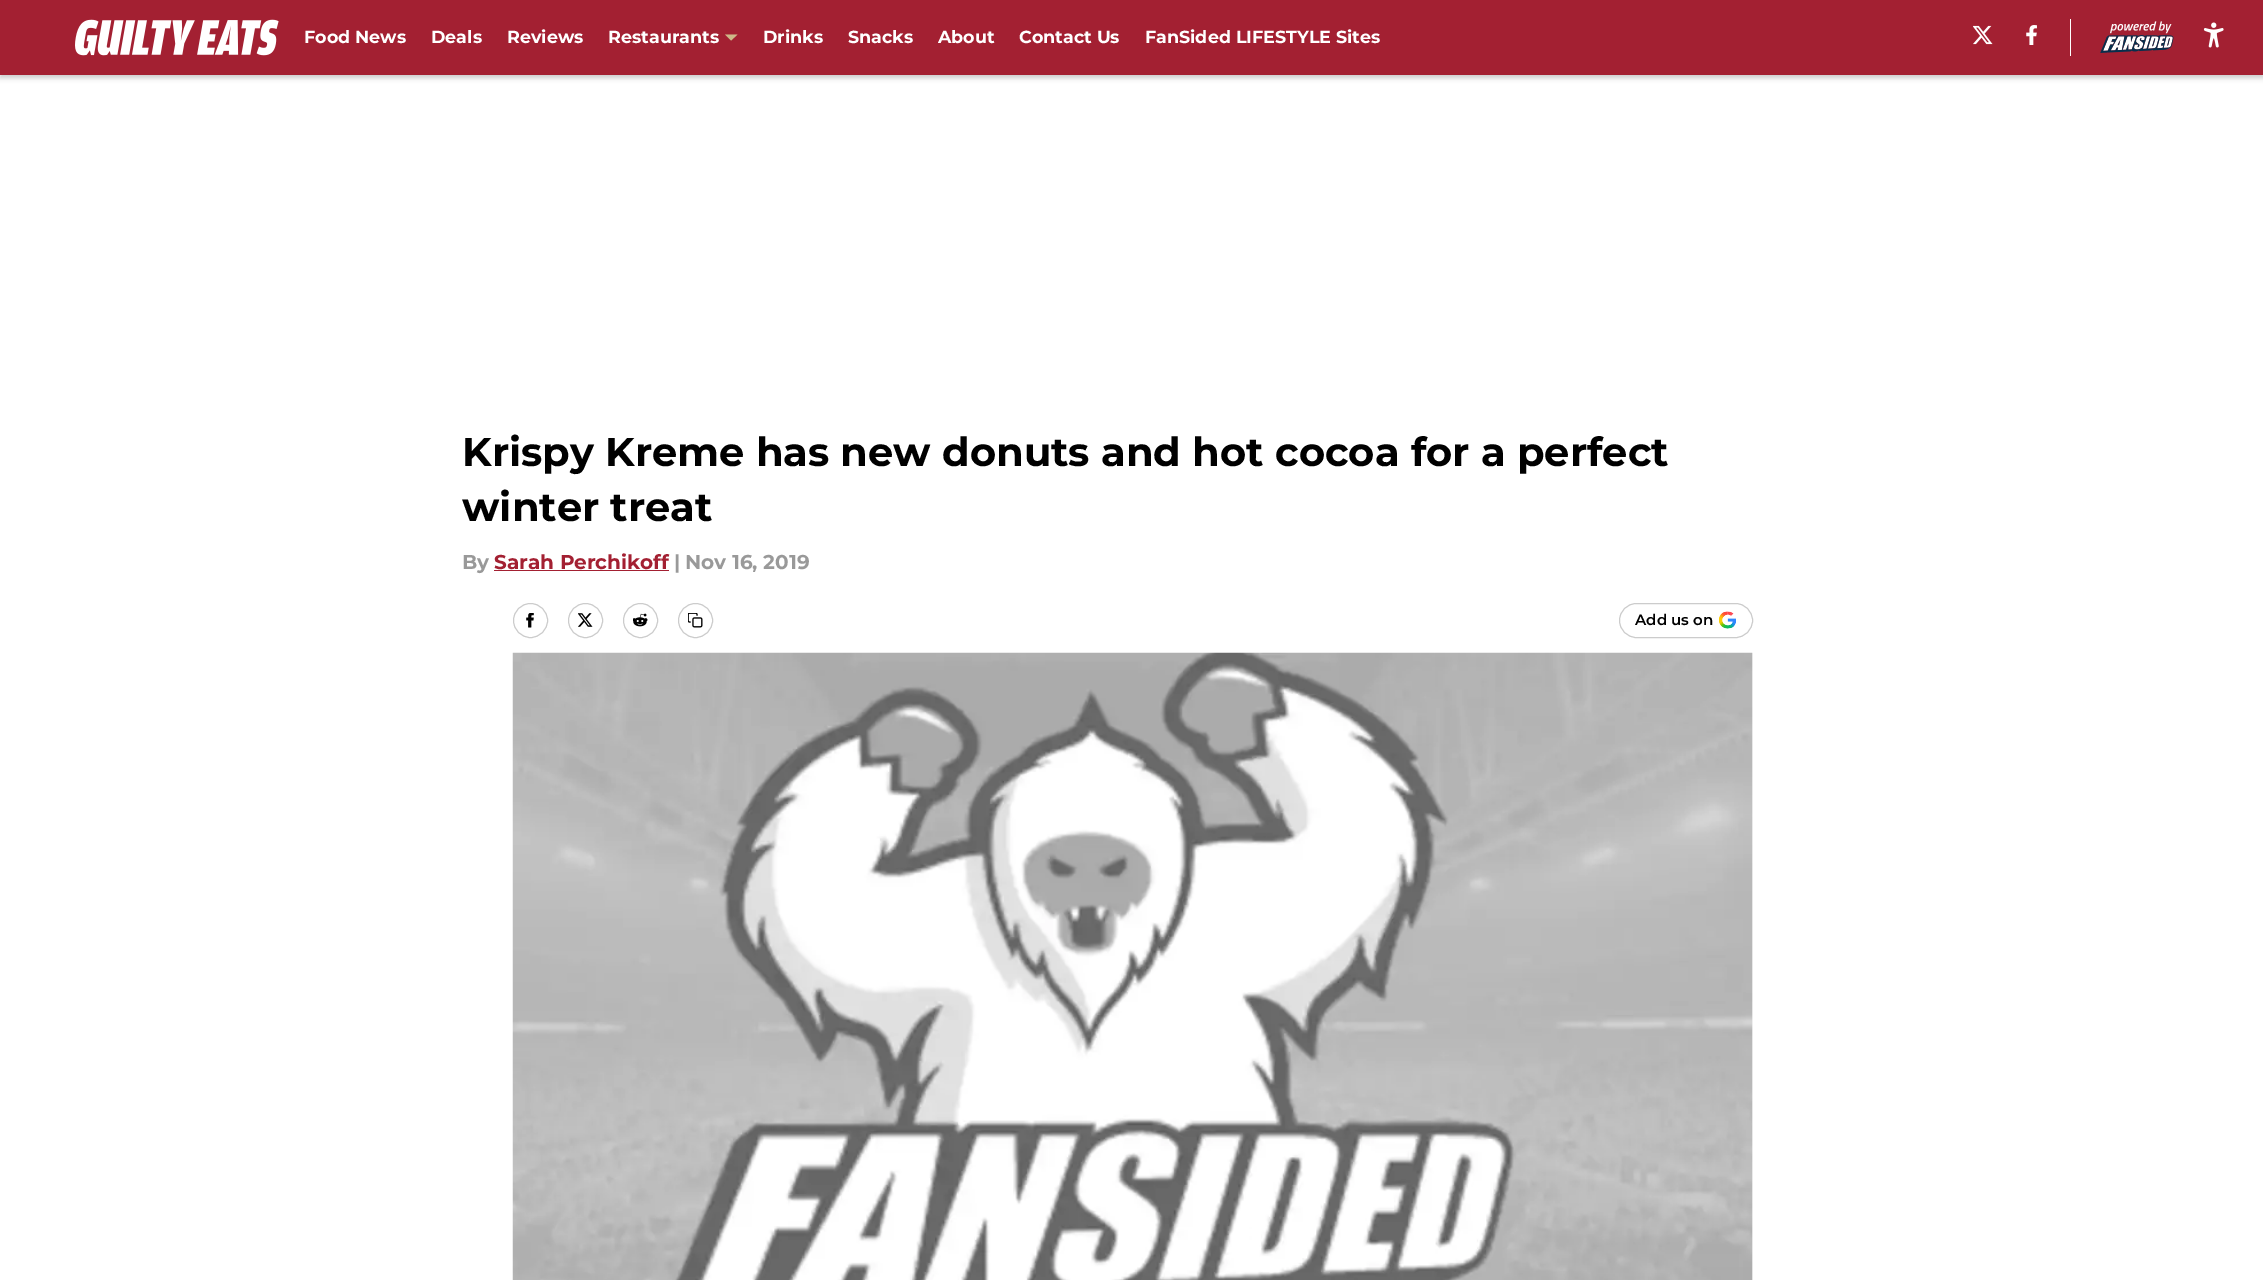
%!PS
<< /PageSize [2263 1280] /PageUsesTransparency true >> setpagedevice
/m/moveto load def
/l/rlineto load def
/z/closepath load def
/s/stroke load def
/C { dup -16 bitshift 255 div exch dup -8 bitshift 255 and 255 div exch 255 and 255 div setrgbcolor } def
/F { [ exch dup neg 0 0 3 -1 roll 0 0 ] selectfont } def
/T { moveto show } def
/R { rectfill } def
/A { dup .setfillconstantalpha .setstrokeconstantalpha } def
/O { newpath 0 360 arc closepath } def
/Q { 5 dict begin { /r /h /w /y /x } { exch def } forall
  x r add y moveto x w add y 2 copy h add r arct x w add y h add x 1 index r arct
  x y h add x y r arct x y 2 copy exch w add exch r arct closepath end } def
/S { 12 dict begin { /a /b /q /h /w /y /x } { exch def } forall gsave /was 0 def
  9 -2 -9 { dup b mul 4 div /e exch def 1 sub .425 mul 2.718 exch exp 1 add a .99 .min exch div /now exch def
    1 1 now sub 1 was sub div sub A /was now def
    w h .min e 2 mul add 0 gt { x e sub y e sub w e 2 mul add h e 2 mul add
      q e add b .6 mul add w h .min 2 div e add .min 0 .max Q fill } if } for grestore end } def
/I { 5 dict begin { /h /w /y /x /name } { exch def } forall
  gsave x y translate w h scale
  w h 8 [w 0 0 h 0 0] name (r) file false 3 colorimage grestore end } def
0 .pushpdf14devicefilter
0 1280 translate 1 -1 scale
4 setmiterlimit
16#FFFFFF C
0 0 2263 1280 R
16#000000 C
0 3 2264 75 0 2.5 .2 S
16#A32032 C
0 0 2263 75 R
(1.rgb) 75 19 204 37 I
/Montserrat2-Thin 17.5 F
16#FFFFFF C
(Food News) 304 43 T
(Deals) 431 43 T
(Reviews) 507 43 T
(Restaurants) 608 43 T
16#CEB888 C
725 34.5 m 6 6 l 6.5 -6 l z eofill
16#FFFFFF C
(Drinks) 763 43 T
(Snacks) 848 43 T
(About) 938 43 T
(Contact Us) 1019 43 T
(FanSided LIFESTYLE Sites) 1145 43 T
(2.rgb) 1973 25 20 20 I
(3.rgb) 2026 25 11 20 I
2070 19 1 37 R
(4.rgb) 2100 21 74 32 I
(5.rgb) 2203 22 21 26 I
/Montserrat2-Thin 40 F
16#000000 C
(Krispy Kreme has new donuts and hot cocoa for a perfect) 462 466 T
(winter treat) 462 521 T
/Montserrat2-Thin 20 F
16#999999 C
(By) 462 569 T
16#A32032 C
(Sarah Perchikoff) 494 569 T
494 570 175 1 R
16#999999 C
(|) 674 569 T
(Nov 16, 2019) 685 569 T
16#CCCCCC C
530.5 620.5 17 O s
(6.rgb) 526 613 8 15 I
585.5 620.5 17 O s
(7.rgb) 578 613 15 14 I
640.5 620.5 17 O s
(8.rgb) 633 613 15 14 I
695.5 620.5 17 O s
(9.rgb) 688 613 15 15 I
1619.5 603.5 133 34 17 Q s
/Montserrat-Thin 15 F
16#000000 C
(Add us on) 1635 625 T
(10.rgb) 1719 611 17 18 I
16#F7F7F7 C
1752 653 1 627 R
(11.rgb) 512 652 1241 628 I
.poppdf14devicefilter showpage
